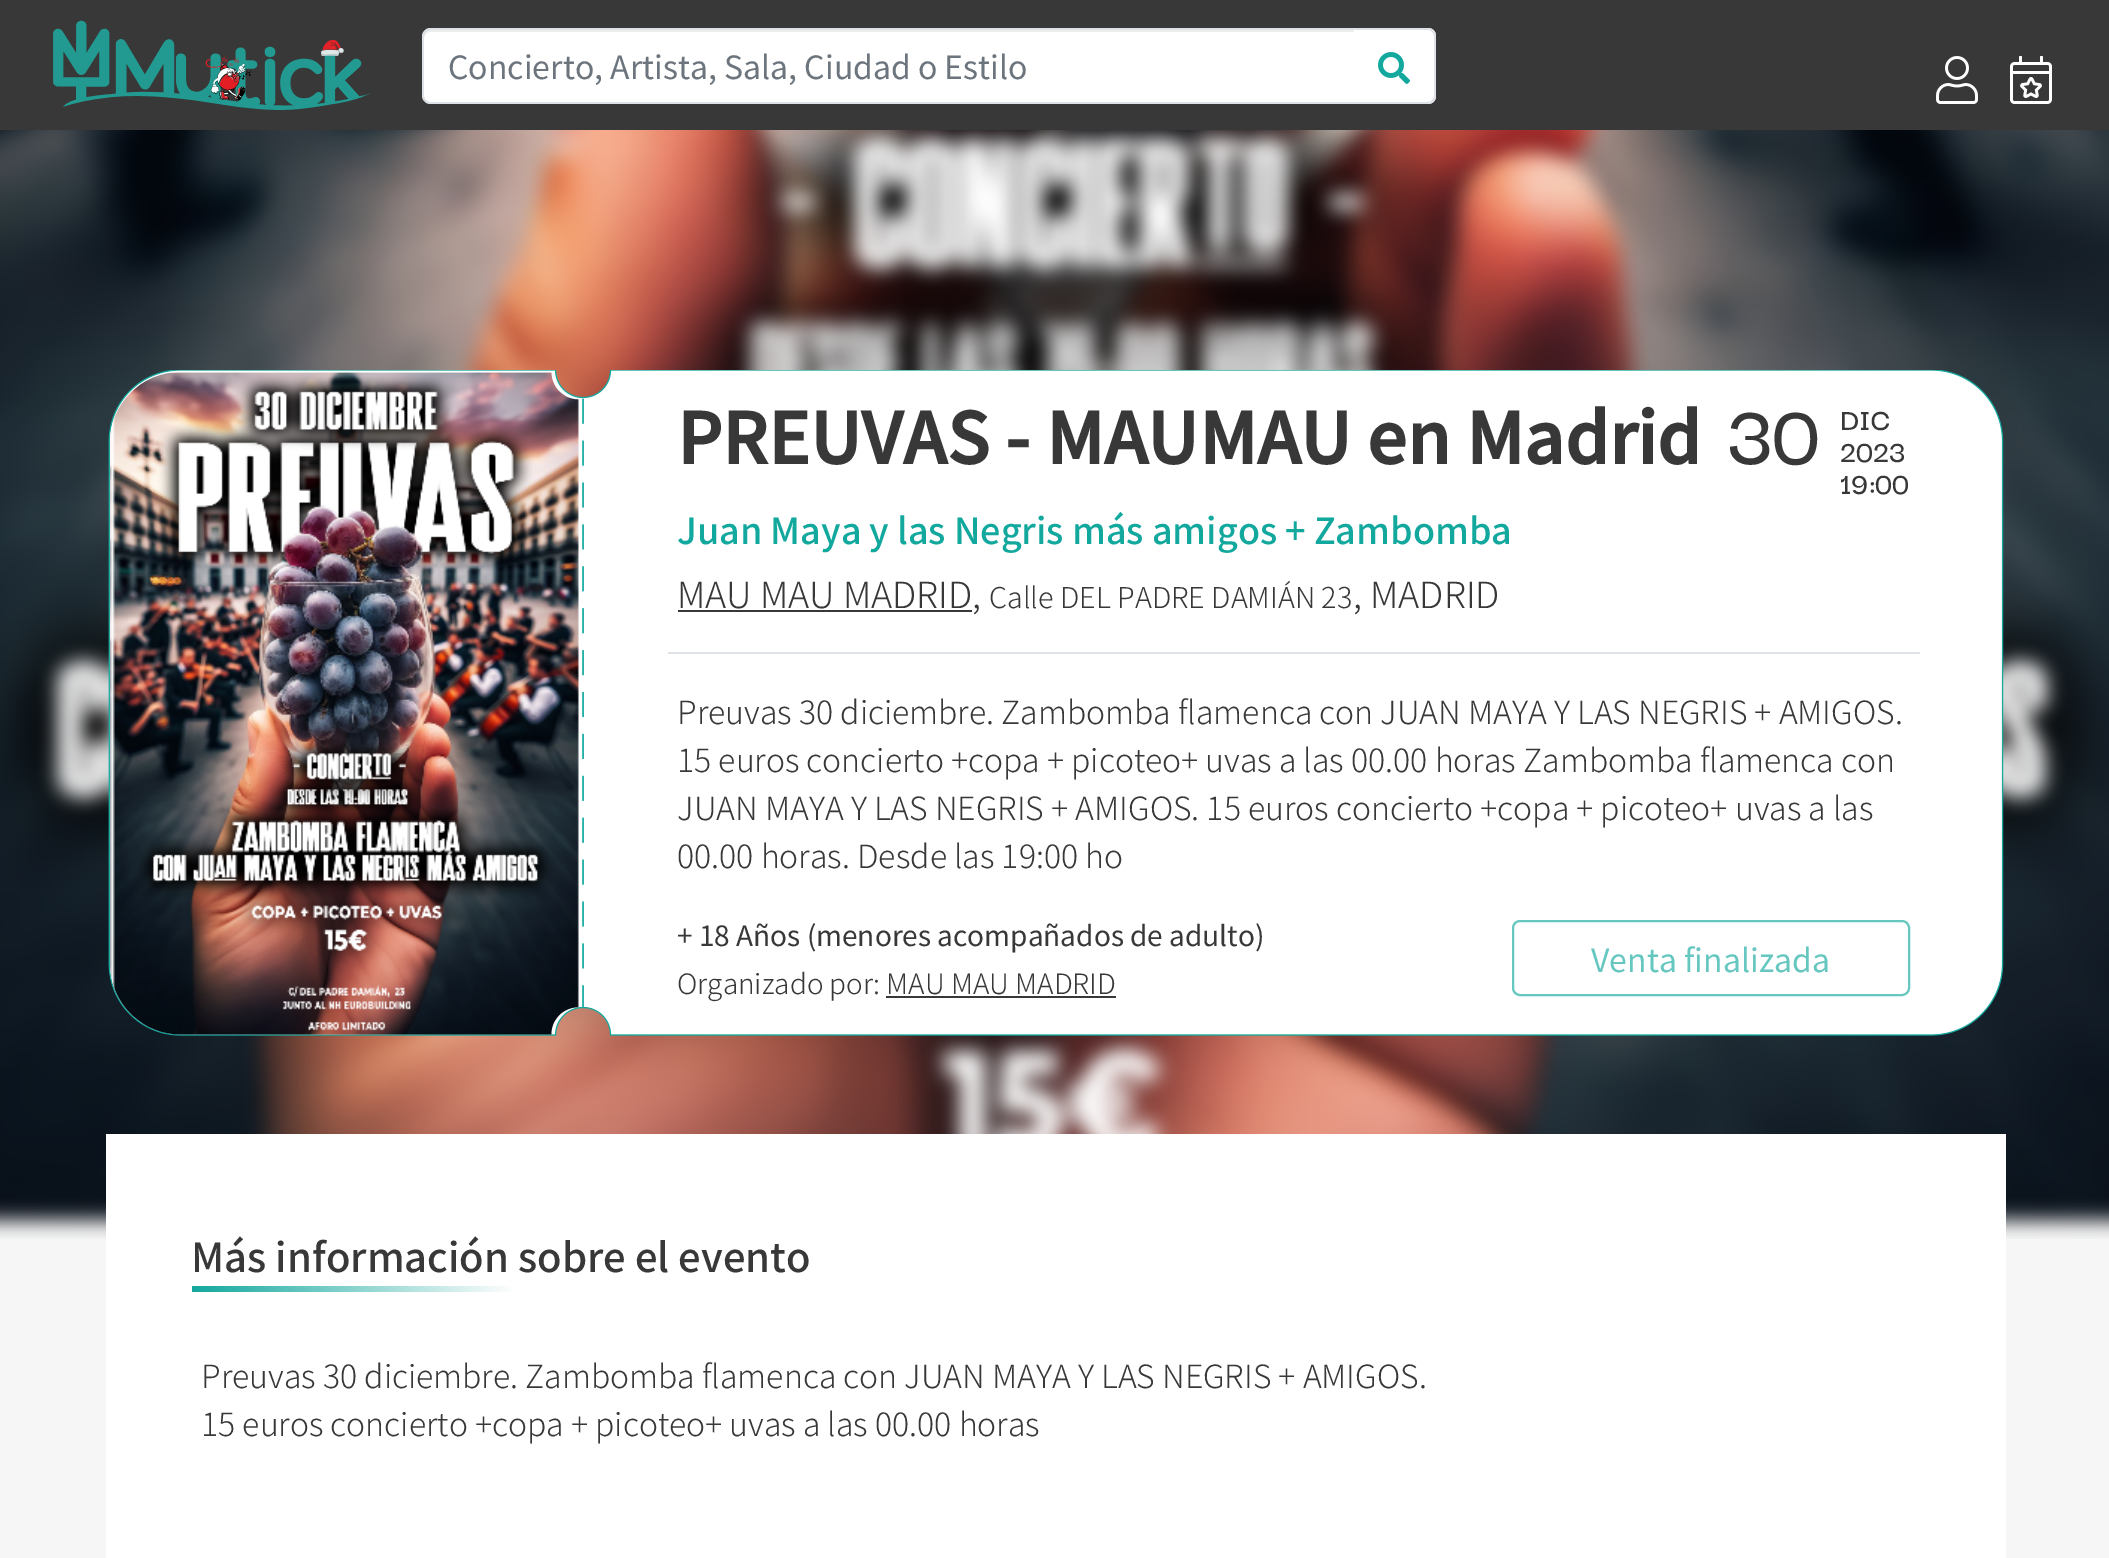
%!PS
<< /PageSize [2109 1558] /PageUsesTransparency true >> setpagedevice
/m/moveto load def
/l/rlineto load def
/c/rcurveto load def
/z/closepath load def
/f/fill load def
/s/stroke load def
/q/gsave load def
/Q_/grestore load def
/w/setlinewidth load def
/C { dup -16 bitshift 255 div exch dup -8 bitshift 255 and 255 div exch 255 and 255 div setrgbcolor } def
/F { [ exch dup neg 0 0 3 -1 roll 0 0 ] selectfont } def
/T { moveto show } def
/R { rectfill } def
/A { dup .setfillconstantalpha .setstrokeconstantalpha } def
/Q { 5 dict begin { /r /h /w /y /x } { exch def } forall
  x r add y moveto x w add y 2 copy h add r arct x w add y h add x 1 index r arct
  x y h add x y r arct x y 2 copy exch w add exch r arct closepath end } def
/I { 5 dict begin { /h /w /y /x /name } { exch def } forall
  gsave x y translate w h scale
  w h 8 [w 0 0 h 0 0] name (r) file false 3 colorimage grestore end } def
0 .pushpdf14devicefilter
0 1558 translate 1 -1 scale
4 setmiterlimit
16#F6F6F6 C
0 0 2109 1558 R
16#383838 C
0 0 2109 130 R
(1.rgb) 53 20 317 90 I
16#FFFFFF C
430 30 m 926 0 l 0 72 l -926 0 l -3.5 0 -6 -2.5 -6 -6 c 0 -60 l 0 -3.5 2.5 -6 6 -6 c z f
0.07 A
16#000000 C
430 32 m 926 0 l 0 -2 l -926 0 l -5 0 -6 4 -6 8 c 0 -3 3 -6 6 -6 c z f
1 A
16#DEE2E6 C
430 28 m 926 0 l 0 76 l -926 0 l -4 0 -8 -4 -8 -8 c 0 -60 l 0 -4 4 -8 8 -8 c z 430 30 m 926 0 l 0 72 l -926 0 l -3 0 -6 -3 -6 -6 c 0 -60 l 0 -3 3 -6 6 -6 c z eofill
/NotoSansJP-Regular 32 F
16#6C757D C
(Concierto, Artista, Sala, Ciudad o Estilo) 448 79 T
16#FFFFFF C
1354 28 m 74 0 l 4.5 0 8 3.5 8 8 c 0 60 l 0 4.5 -3.5 8 -8 8 c -74 0 l z f
16#DEE2E6 C
1354 28 m 74 0 l 4 0 8 4 8 8 c 0 60 l 0 4 -4 8 -8 8 c -74 0 l z 1354 30 m 74 0 l 3 0 6 3 6 6 c 0 60 l 0 3 -3 6 -6 6 c -74 0 l z eofill
(2.rgb) 1378 52 32 32 I
(3.rgb) 1936 56 42 48 I
(4.rgb) 2010 56 42 48 I
(5.rgb) 0 130 2109 1109 I
(6.rgb) 108 370 1896 666 I
(7.rgb) 110 372 469 663 I
/NotoSansJP-Bold 70 F
16#383838 C
(PREUVAS - MAUMAU en Madrid) 677 464 T
/DarkerGrotesque-SemiBold 90 F
(30) 1727 464 T
/DarkerGrotesque-SemiBold 32 F
(DIC) 1840 430 T
(2023) 1840 462 T
(19:00) 1840 494 T
/NotoSansJP-Medium 36 F
16#13A89E C
(Juan Maya y las Negris más amigos + Zambomba) 677 544 T
16#383838 C
678 610 294 2 R
/NotoSansJP-Light 36 F
(MAU MAU MADRID,) 677 608 T
/NotoSansJP-Light 28.75 F
(Calle DEL PADRE DAMIÁN 23) 989 608 T
/NotoSansJP-Light 36 F
(, MADRID) 1353 608 T
16#DEE2E6 C
668 652 1252 2 R
/NotoSansJP-Light 32 F
16#383838 C
(Preuvas 30 diciembre. Zambomba flamenca con JUAN MAYA Y LAS NEGRIS + AMIGOS.) 677 724 T
(15 euros concierto +copa + picoteo+ uvas a las 00.00 horas Zambomba flamenca con) 677 772 T
(JUAN MAYA Y LAS NEGRIS + AMIGOS. 15 euros concierto +copa + picoteo+ uvas a las) 677 820 T
(00.00 horas. Desde las 19:00 ho) 677 868 T
/NotoSansJP-Regular 28 F
(+ 18 Años \(menores acompañados de adulto\)) 677 946 T
/NotoSansJP-Light 28 F
(Organizado por: MAU MAU MADRID) 677 994 T
886 996 230 2 R
16#66C6C0 C
2 w
1513 921 396 74 7 Q s
/NotoSansJP-Regular 32 F
(Venta finalizada) 1591 972 T
16#FFFFFF C
106 1134 1900 424 R
/NotoSansJP-Medium 40 F
16#383838 C
(Más información sobre el evento) 191 1272 T
q 192 1286 m 320 0 l 0 6 l -320 0 l z clip newpath
<< /ShadingType 2 /ColorSpace /DeviceRGB /Coords [192 1289 512 1289] /Extend [true true] /Function << /FunctionType 2 /Domain [0 1] /C0 [.075 .659 .62] /C1 [.996 .996 .996] /N 1 >> >> shfill Q_
/NotoSansJP-Light 32 F
(Preuvas 30 diciembre. Zambomba flamenca con JUAN MAYA Y LAS NEGRIS + AMIGOS.) 201 1388 T
(15 euros concierto +copa + picoteo+ uvas a las 00.00 horas) 201 1436 T
.poppdf14devicefilter showpage
